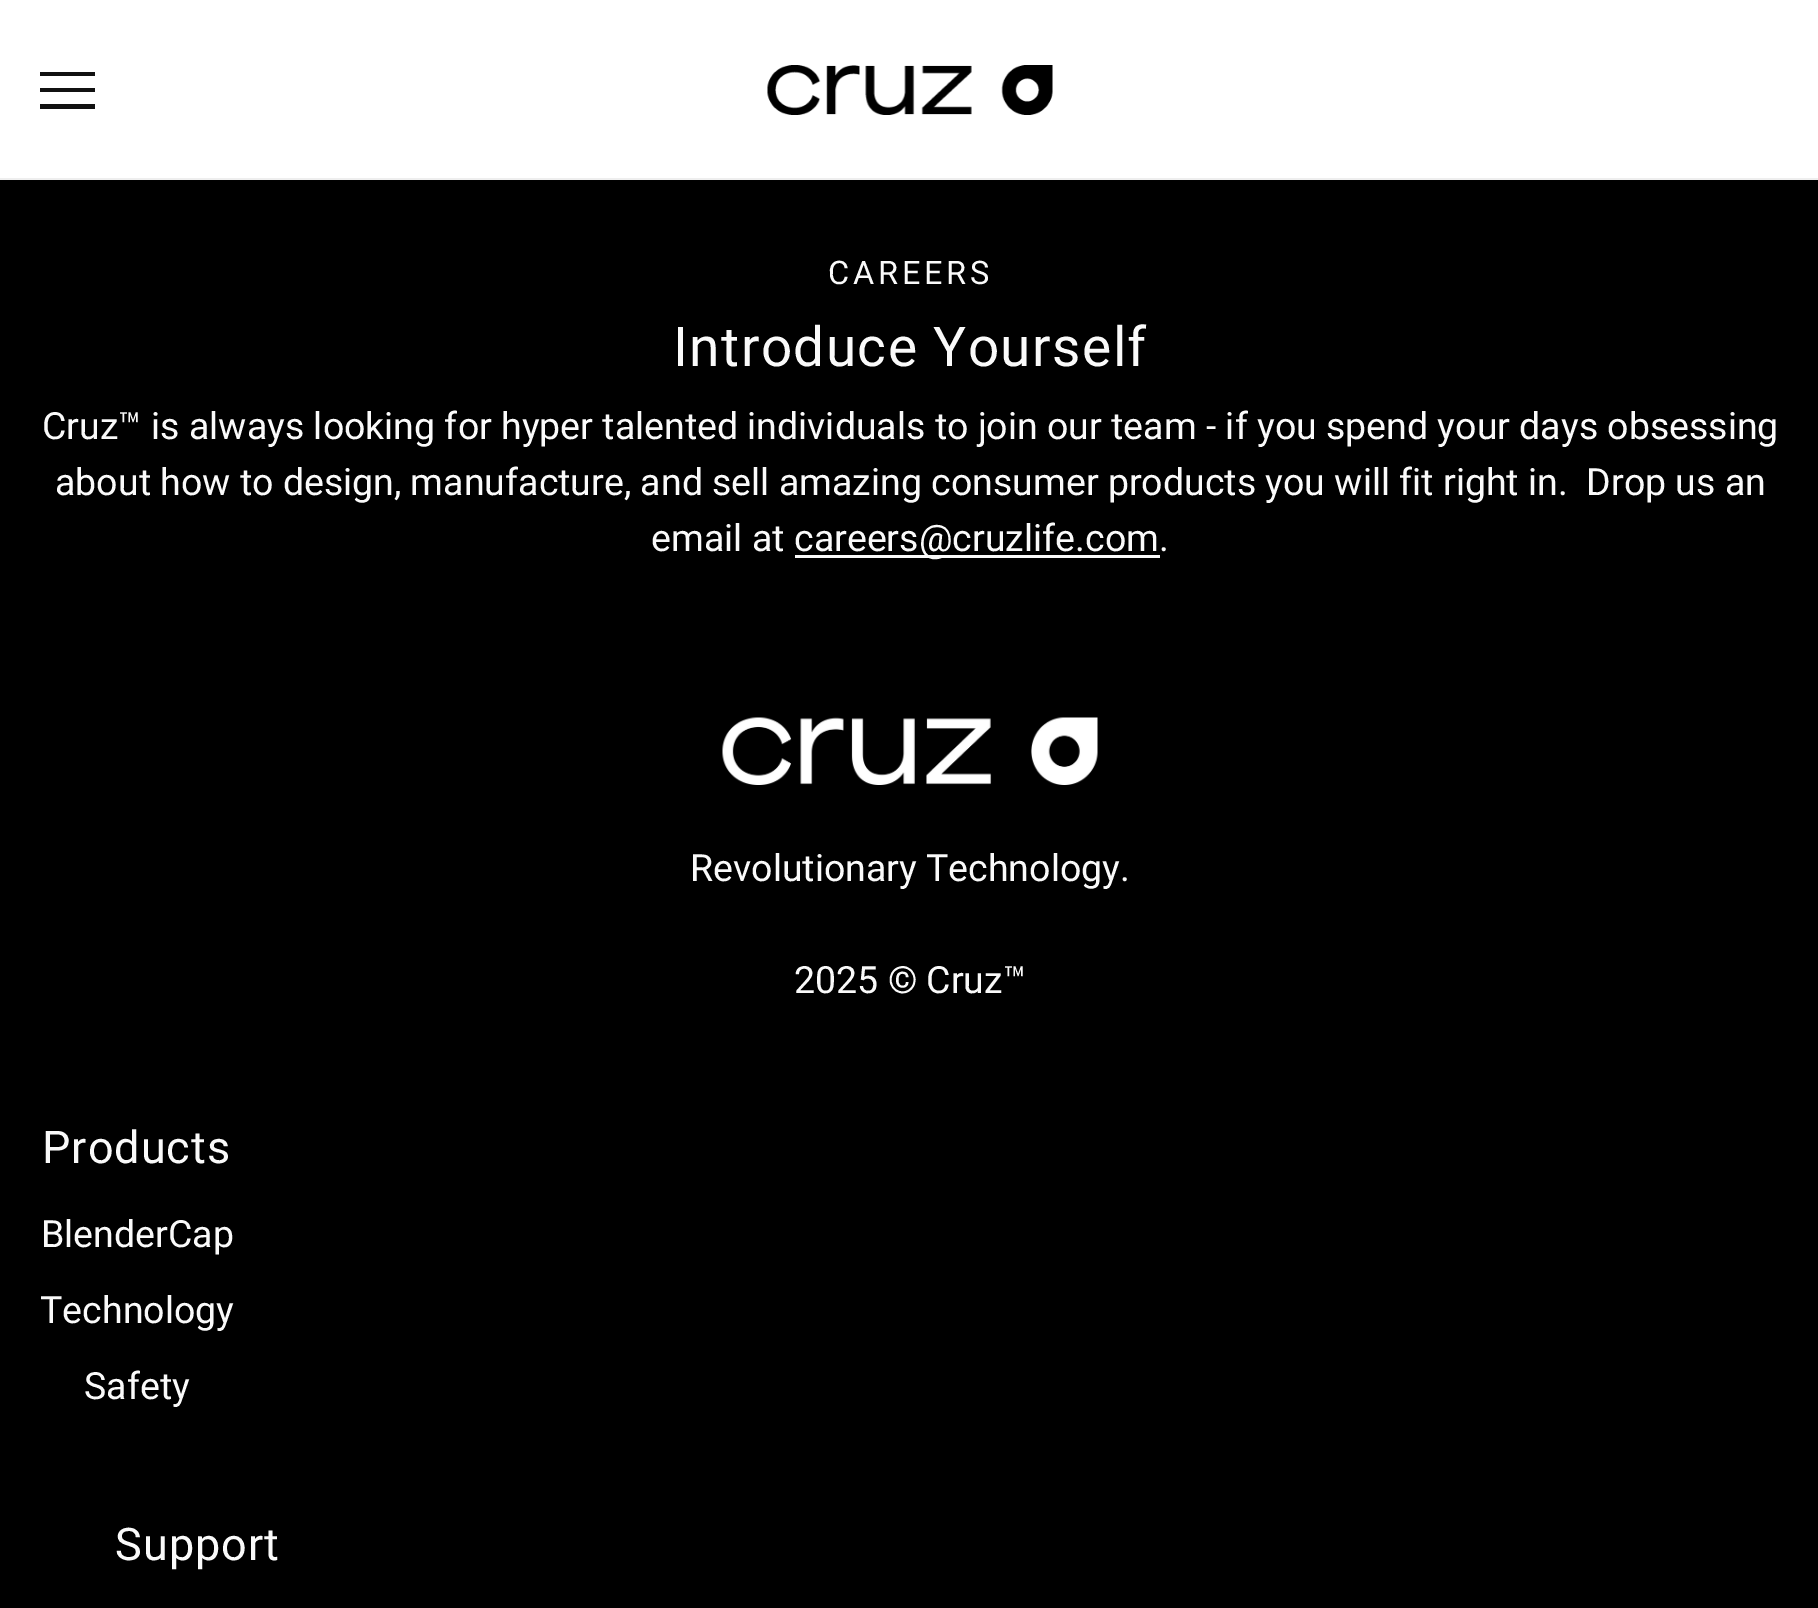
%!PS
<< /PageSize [1818 1608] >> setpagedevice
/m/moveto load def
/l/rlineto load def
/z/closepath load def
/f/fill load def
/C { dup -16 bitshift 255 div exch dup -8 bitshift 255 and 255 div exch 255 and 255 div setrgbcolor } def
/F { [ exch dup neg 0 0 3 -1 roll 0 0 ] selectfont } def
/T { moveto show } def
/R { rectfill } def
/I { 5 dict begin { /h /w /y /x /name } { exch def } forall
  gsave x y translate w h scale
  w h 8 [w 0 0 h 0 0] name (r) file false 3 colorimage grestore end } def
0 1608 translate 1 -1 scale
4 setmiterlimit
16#FFFFFF C
0 0 1818 1608 R
16#EEEEEE C
0 178 1818 2 R
16#111111 C
40 76 m 0 -4 l 55 0 l 0 4 l z 40 92 m 0 -4 l 55 0 l 0 4 l z 40 109 m 0 -5 l 55 0 l 0 5 l z f
(1.rgb) 767 65 286 50 I
16#000000 C
0 181 1818 1427 R
16#010101 C
0 180 1818 1 R
/Roboto-Regular 32.5 F
16#FAFAFA C
828 284 m 3.75 0 (CAREERS) ashow
/Roboto-Regular 55 F
673 366 m 1.4 0 (Introduce Yourself) ashow
/Roboto-Regular 37.5 F
(Cruz™ is always looking for hyper talented individuals to join our team - if you spend your days obsessing) 42 439 T
(about how to design, manufacture, and sell amazing consumer products you will fit right in.  Drop us an) 55 495 T
(email at) 651 551 T
795 555 365 3 R
(careers@cruzlife.com.) 794 551 T
(2.rgb) 722 717 376 68 I
(Revolutionary Technology.) 690 881 T
(2025 © Cruz™) 794 993 T
/Roboto-Regular 45 F
42 1163 m 1 0 (Products) ashow
/Roboto-Regular 37.5 F
(BlenderCap) 41 1247 T
(Technology) 40 1323 T
(Safety) 84 1399 T
/Roboto-Regular 45 F
115 1560 m 1 0 (Support) ashow
showpage
